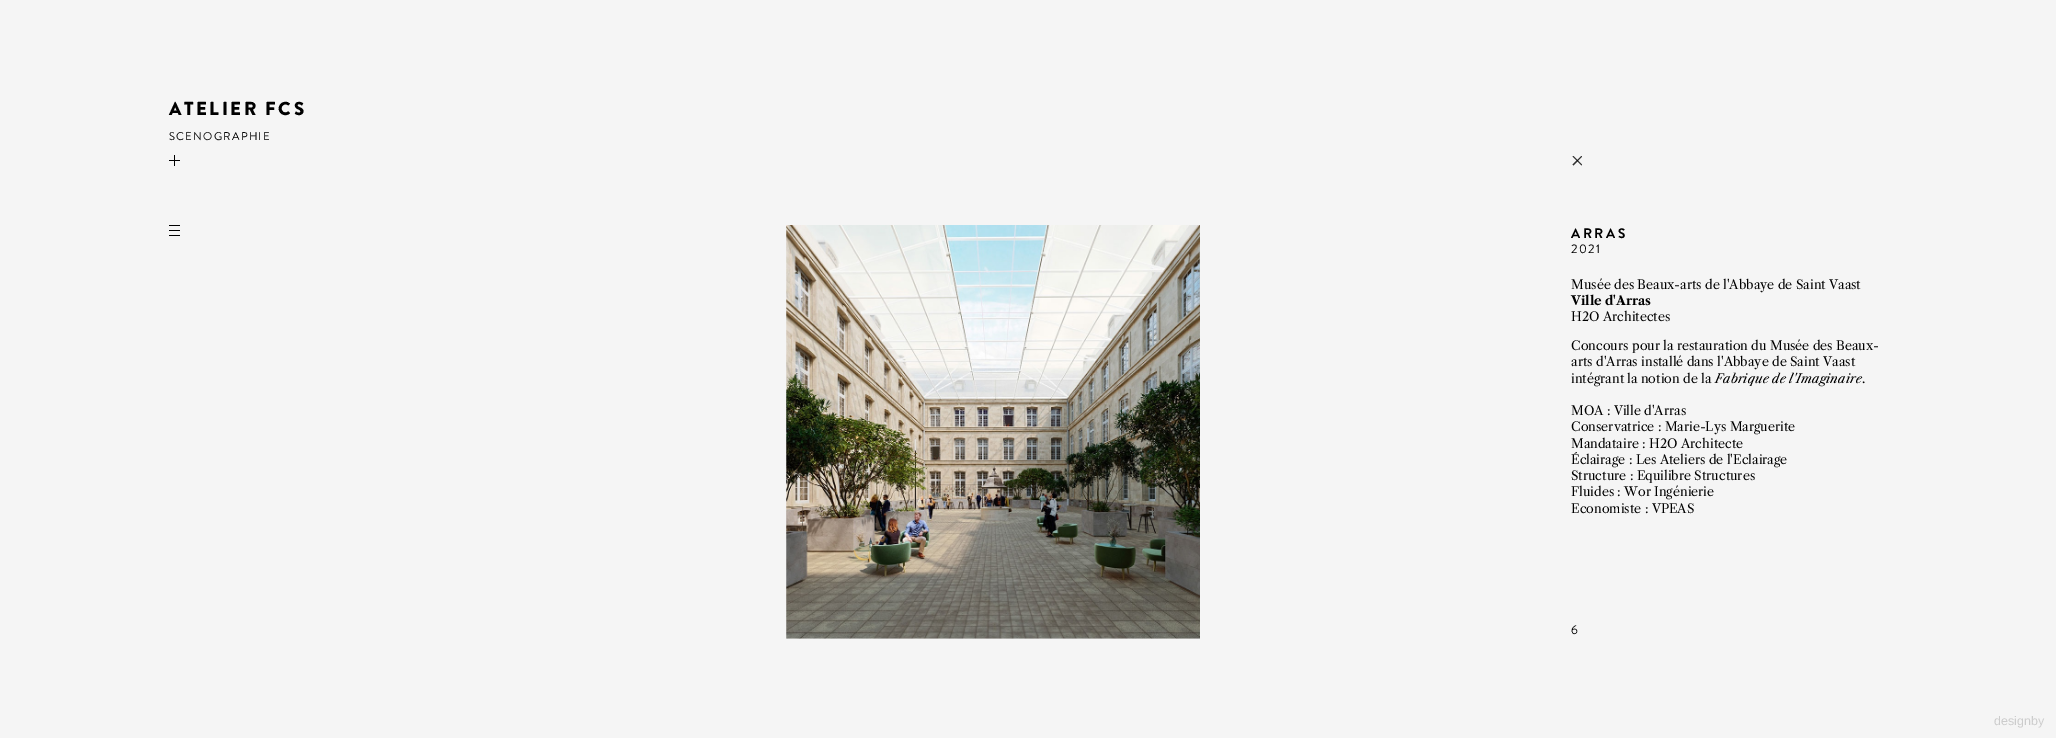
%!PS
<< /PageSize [2056 738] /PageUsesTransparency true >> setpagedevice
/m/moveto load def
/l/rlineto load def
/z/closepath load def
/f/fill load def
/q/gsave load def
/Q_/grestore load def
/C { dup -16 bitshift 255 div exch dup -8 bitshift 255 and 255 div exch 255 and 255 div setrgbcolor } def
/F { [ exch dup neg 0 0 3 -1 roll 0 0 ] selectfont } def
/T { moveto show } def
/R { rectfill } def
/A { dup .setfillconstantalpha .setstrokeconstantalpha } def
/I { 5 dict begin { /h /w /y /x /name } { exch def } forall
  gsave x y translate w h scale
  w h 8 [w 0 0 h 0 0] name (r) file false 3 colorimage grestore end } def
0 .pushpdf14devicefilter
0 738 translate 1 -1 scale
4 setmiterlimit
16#F5F5F5 C
0 0 2056 738 R
/BrandonGrotesque-Black 18.75 F
16#000000 C
169 115 m 2.5 0 (ATELIER FCS) ashow
q
169 131 306 12 rectclip
/BrandonGrotesque-Regular 11.25 F
169 140 m 1.25 0 (SCÉNOGRAPHIE) ashow
Q_
169 160 11 1 R
174 155 1 11 R
169 225 11 1 R
169 230 11 1 R
169 235 11 1 R
(1.rgb) 786 225 414 414 I
16#313131 C
1573.5 156 m 8.5 8.5 l -.5 1 l -9 -9 l z f
0.8 A
16#000000 C
1572.5 164.5 m 9 -8.5 l .5 .5 l -8.5 9 l z f
/BrandonGrotesque-Bold 13.75 F
1 A
1571 238 m 2.5 0 (ARRAS) ashow
/BrandonGrotesque-Regular 12.5 F
1571 253 m 1.25 0 (2021) ashow
/LibreCaslonText-Regular 12.5 F
(Musée des Beaux-arts de l'Abbaye de Saint Vaast) 1571 289 T
/LibreCaslonText-Bold 12.5 F
(Ville d'Arras) 1571 305 T
/LibreCaslonText-Regular 12.5 F
(H2O Architectes) 1571 321 T
(Concours pour la restauration du Musée des Beaux-) 1571 350 T
(arts d'Arras installé dans l'Abbaye de Saint Vaast) 1571 366 T
(intégrant la notion de la) 1571 383 T
/LibreCaslonText-Italic 12.5 F
(Fabrique de l'Imaginaire) 1715 383 T
/LibreCaslonText-Regular 12.5 F
(.) 1862 383 T
(MOA : Ville d'Arras) 1571 415 T
(Conservatrice : Marie-Lys Marguerite) 1571 431 T
(Mandataire : H2O Architecte) 1571 448 T
(Éclairage : Les Ateliers de l'Eclairage) 1571 464 T
(Structure : Equilibre Structures) 1571 480 T
(Fluides : Wor Ingénierie) 1571 496 T
(Economiste : VPEAS) 1571 513 T
/BrandonGrotesque-Regular 12.5 F
1571 634 m 1.25 0 (6) ashow
/LiberationSans-Regular 12.5 F
16#CCCCCC C
(designby) 1994 725 T
.poppdf14devicefilter showpage
